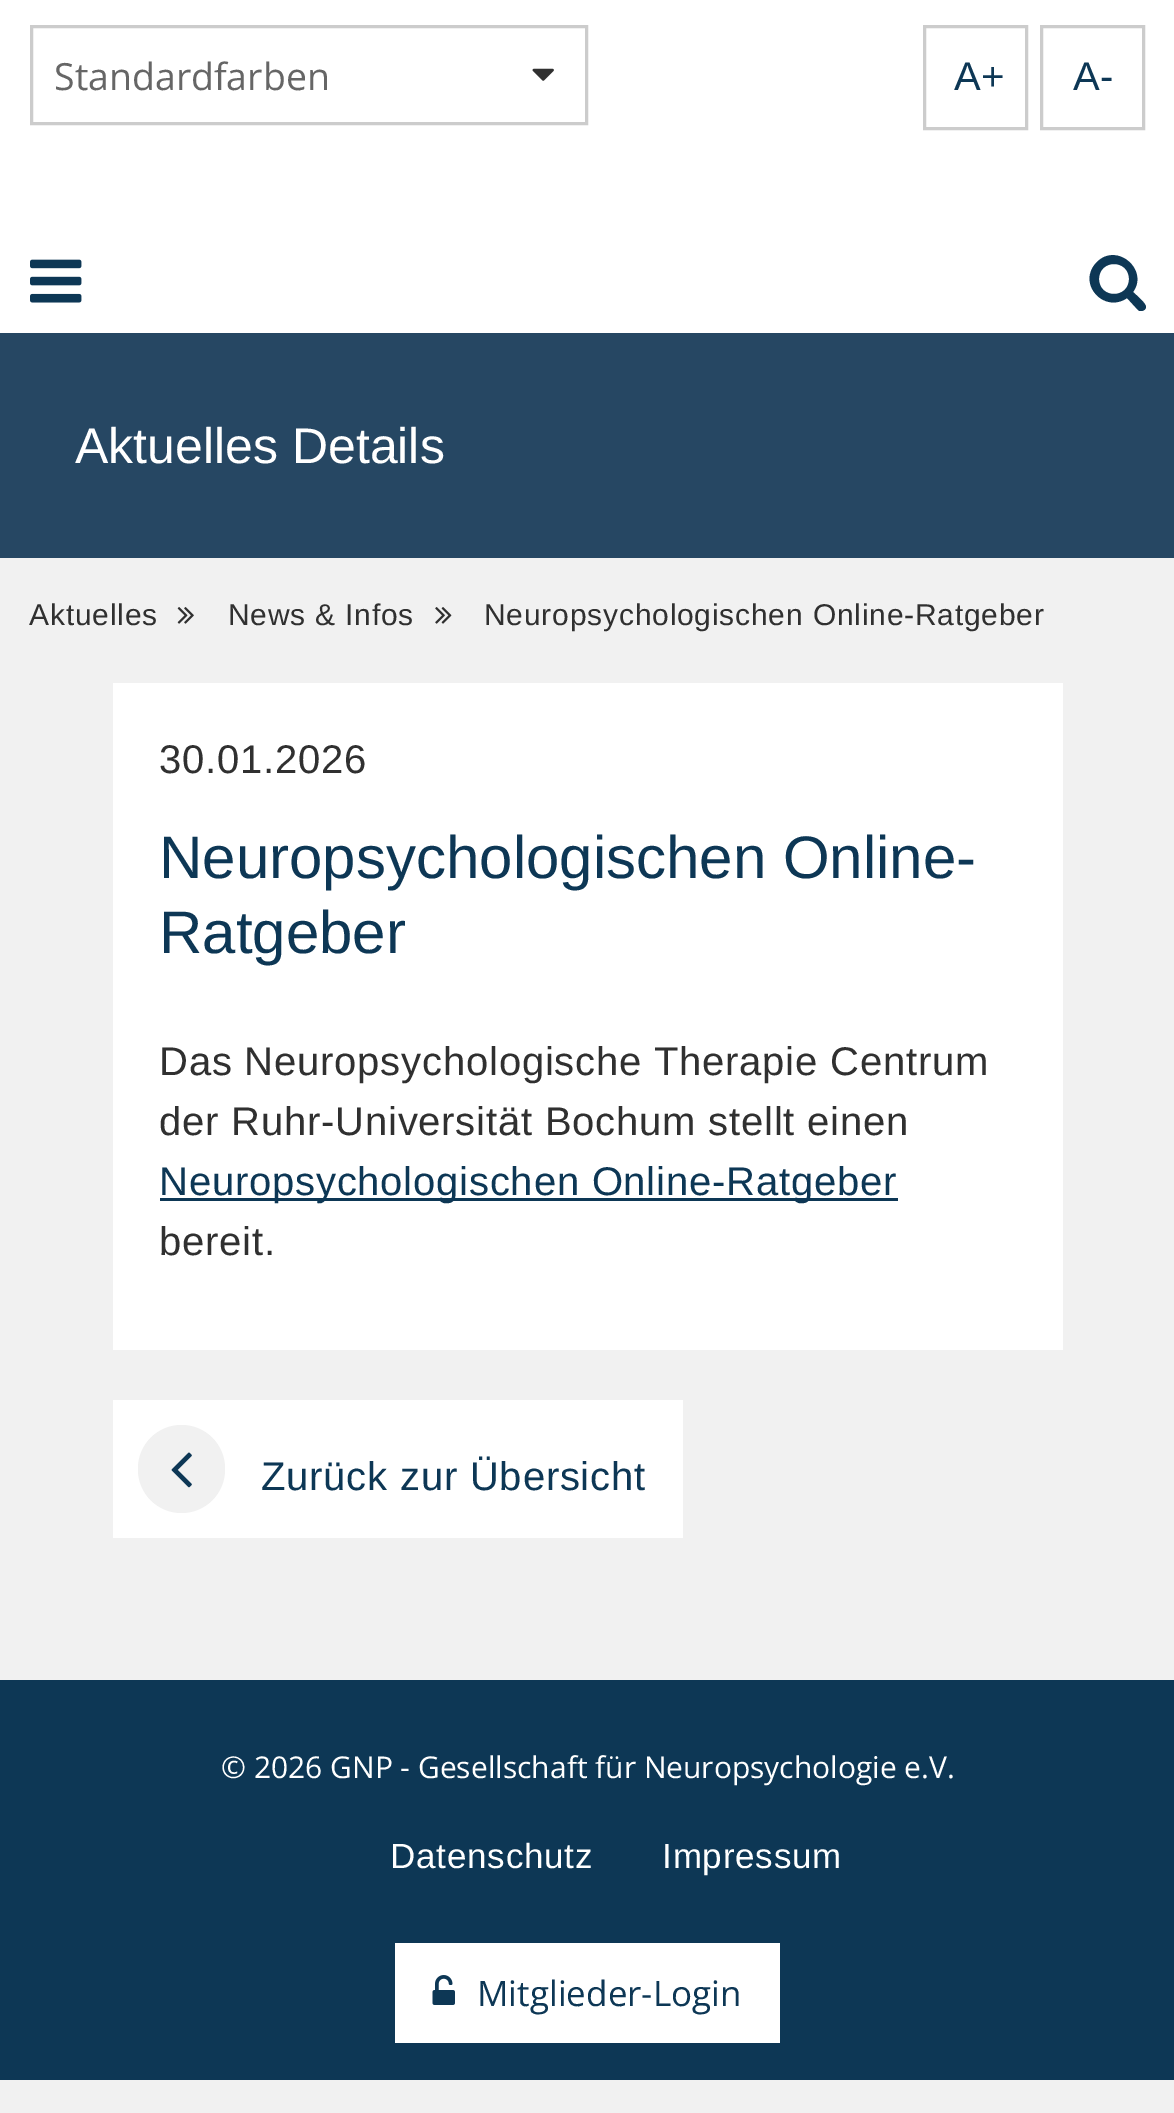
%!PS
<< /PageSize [1174 2113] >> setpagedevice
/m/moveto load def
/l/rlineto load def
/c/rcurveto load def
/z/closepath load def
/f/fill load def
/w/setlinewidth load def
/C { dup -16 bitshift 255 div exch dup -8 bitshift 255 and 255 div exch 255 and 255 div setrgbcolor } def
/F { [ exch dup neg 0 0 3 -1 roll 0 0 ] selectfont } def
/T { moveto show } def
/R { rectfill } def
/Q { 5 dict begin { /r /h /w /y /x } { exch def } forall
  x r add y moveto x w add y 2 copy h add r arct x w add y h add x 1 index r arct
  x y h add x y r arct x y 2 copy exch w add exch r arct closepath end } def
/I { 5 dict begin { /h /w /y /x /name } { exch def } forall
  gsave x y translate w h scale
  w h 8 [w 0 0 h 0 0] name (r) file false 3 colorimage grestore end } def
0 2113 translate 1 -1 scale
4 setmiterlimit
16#FFFFFF C
0 0 1174 2113 R
16#CCCCCC C
3 w
31.5 26.5 555 97 rectstroke
/OpenSans-Regular 37.5 F
16#666666 C
(Standardfarben) 54 90 T
(1.rgb) 532 68 22 13 I
16#CCCCCC C
924.5 26.5 102 102 rectstroke
/LiberationSans-Regular 40 F
16#0D3755 C
(A+) 954 90 T
16#CCCCCC C
1041.5 26.5 102 102 rectstroke
16#0D3755 C
(A-) 1073 90 T
(2.rgb) 30 259 52 44 I
1129 279 m 0 20 -30 20 -30 0 c 0 -20 30 -20 30 0 c z 1146 307 m 0 -4 -10 -12 -13 -15 c 16 -22 -16 -50 -36 -30 c -21 21 7 52 30 36 c 11 12 l 1 1 2 1 3 1 c 3 0 5 -2 5 -4 c z f
16#F1F1F1 C
0 558 1174 1122 R
16#264763 C
0 333 1174 225 R
/LiberationSans-Regular 50 F
16#FFFFFF C
(Aktuelles Details) 75 463 T
/LiberationSans-Regular 30 F
16#303030 C
29 625 m .8 0 (Aktuelles) ashow
(3.rgb) 177 607 17 17 I
228 625 m .8 0 (News & Infos) ashow
(4.rgb) 435 607 17 17 I
484 625 m .8 0 (Neuropsychologischen Online-Ratgeber) ashow
16#FFFFFF C
113 683 950 667 R
/LiberationSans-Regular 40 F
16#303030 C
159 773 m .8 0 (30.01.2026) ashow
/LiberationSans-Regular 60 F
16#0D3755 C
(Neuropsychologischen Online-) 159 878 T
(Ratgeber) 159 953 T
/LiberationSans-Regular 40 F
16#303030 C
159 1075 m .8 0 (Das Neuropsychologische Therapie Centrum) ashow
159 1135 m .8 0 (der Ruhr-Universität Bochum stellt einen) ashow
16#0D3755 C
160 1198 738 3 R
159 1195 m .8 0 (Neuropsychologischen Online-Ratgeber) ashow
16#303030 C
159 1255 m .8 0 (bereit.) ashow
16#FFFFFF C
113 1400 570 138 R
16#F1F1F1 C
138 1425 87 88 43.5 Q f
(5.rgb) 171 1452 21 36 I
16#0D3755 C
261 1490 m .8 0 (Zurück zur Übersicht) ashow
16#F1F1F1 C
0 2080 1174 33 R
16#0D3755 C
0 1680 1174 400 R
/OpenSans-Regular 30 F
16#FFFFFF C
(© 2026 GNP - Gesellschaft für Neuropsychologie e.V.) 221 1778 T
/LiberationSans-Regular 35 F
390 1868 m .8 0 (Datenschutz) ashow
662 1868 m .8 0 (Impressum) ashow
395 1943 385 100 R
(6.rgb) 432 1975 23 30 I
/OpenSans-Regular 35 F
16#0D3755 C
(Mitglieder-Login) 477 2006 T
showpage
